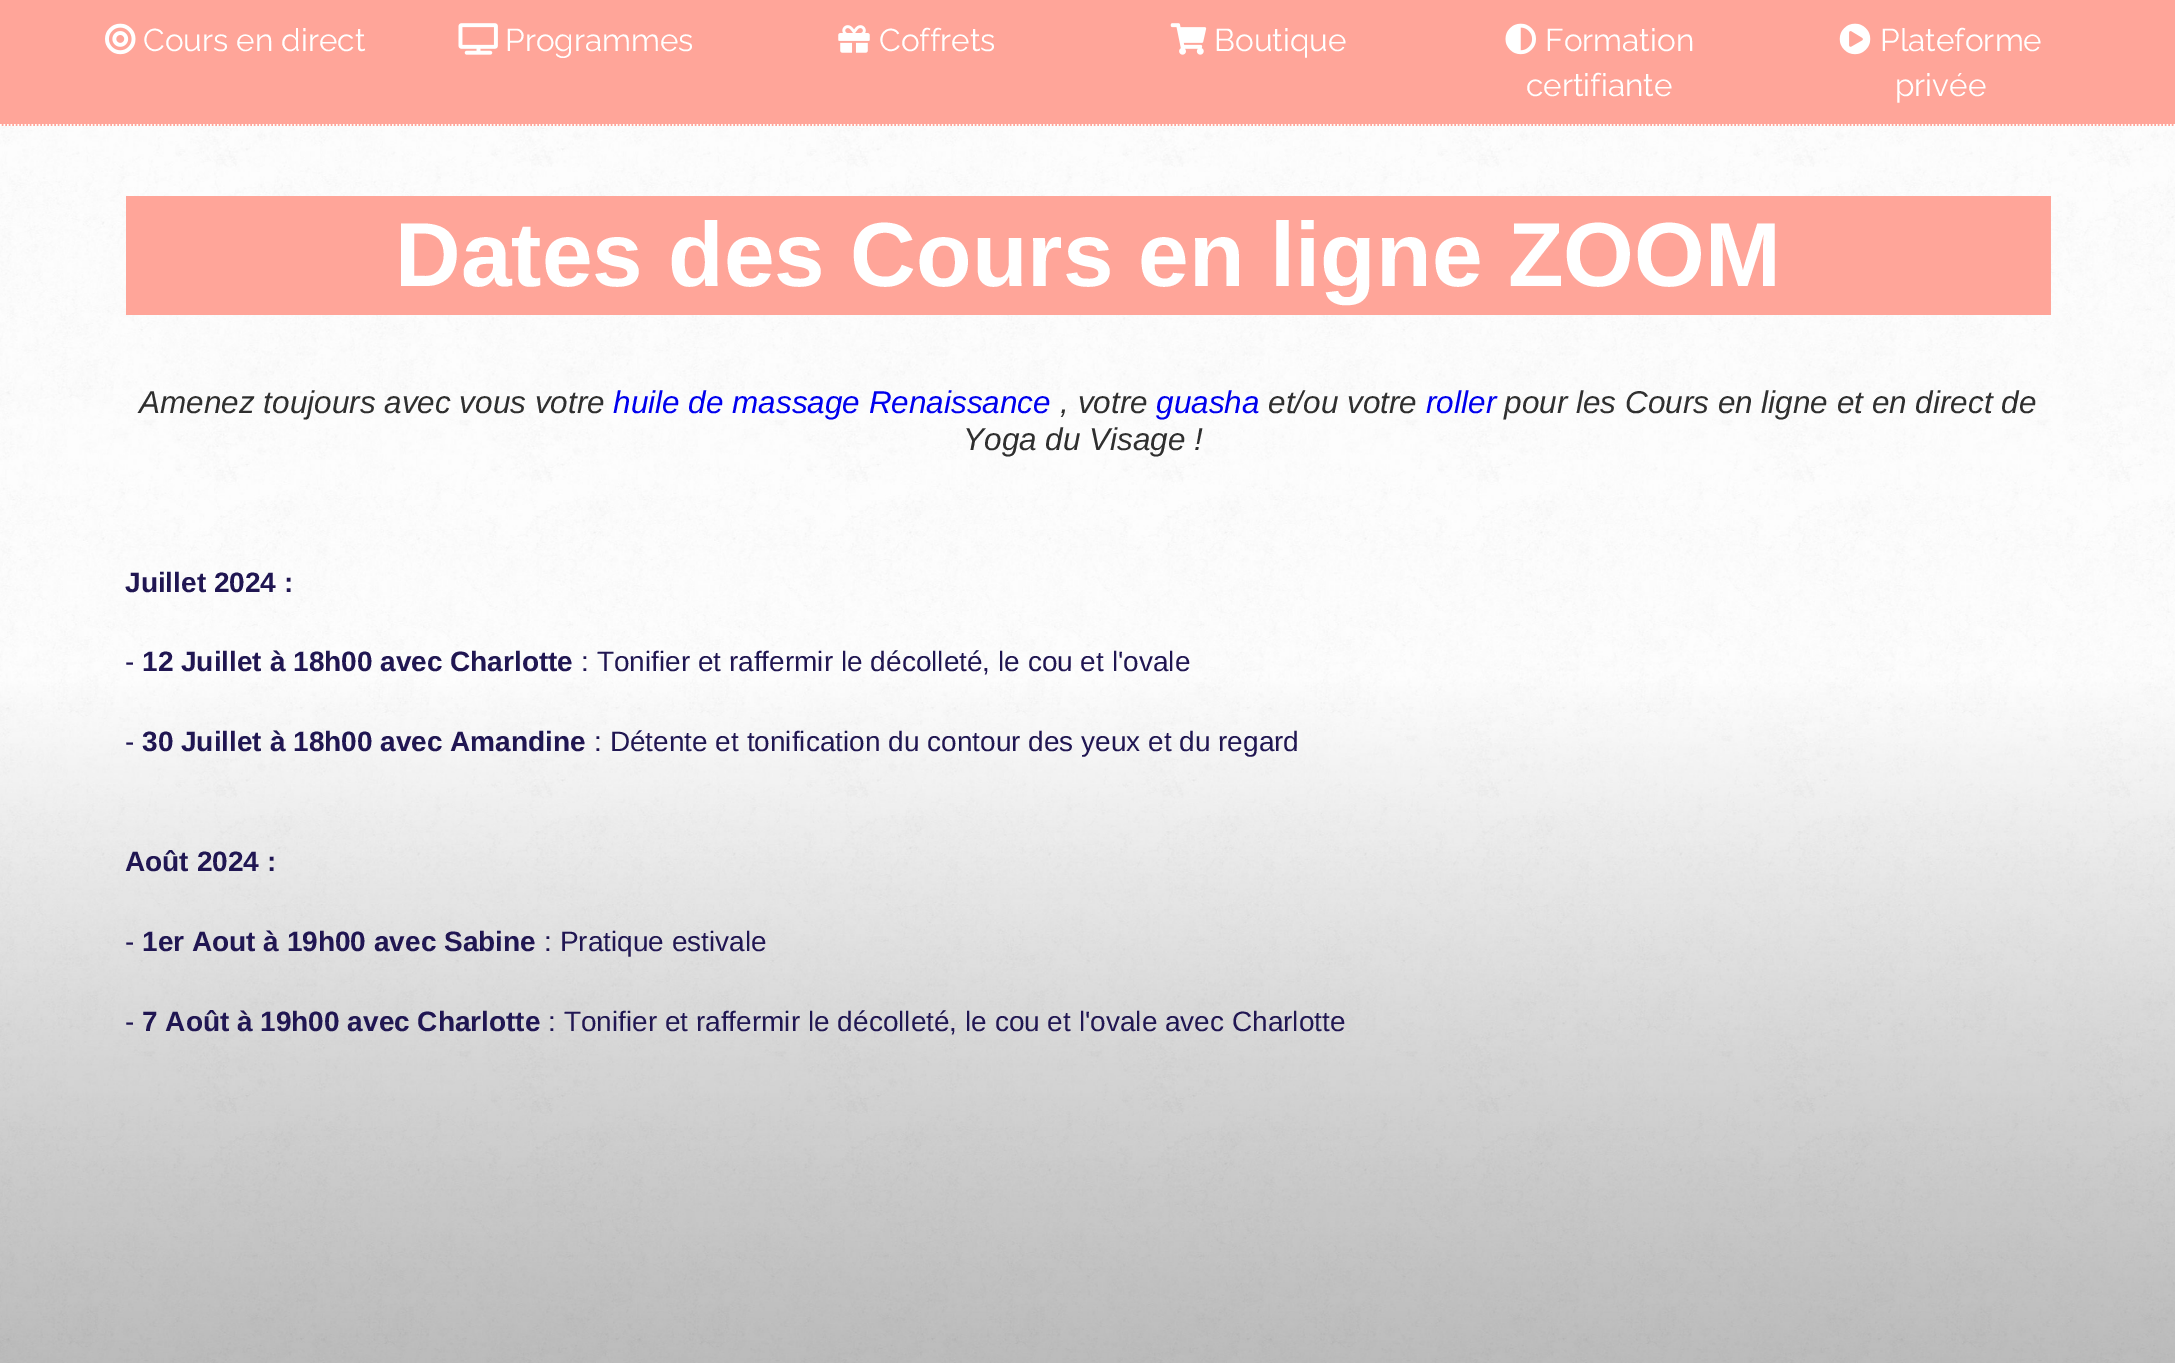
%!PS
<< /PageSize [2175 1363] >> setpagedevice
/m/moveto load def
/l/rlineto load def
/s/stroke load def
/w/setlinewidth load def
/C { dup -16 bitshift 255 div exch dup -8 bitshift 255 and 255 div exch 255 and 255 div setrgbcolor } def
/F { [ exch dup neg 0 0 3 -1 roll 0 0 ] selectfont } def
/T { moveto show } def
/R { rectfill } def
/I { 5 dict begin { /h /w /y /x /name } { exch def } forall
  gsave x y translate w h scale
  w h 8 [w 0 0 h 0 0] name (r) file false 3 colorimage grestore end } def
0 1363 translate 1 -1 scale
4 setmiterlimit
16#FFFFFF C
0 0 2175 1363 R
(1.rgb) 0 126 2175 1237 I
16#FFA599 C
0 0 2175 126 R
16#FFFFFF C
1.8 w
[1.75 1.75] 0 setdash
0 125 m 2175 0 l s
(2.rgb) 105 23 31 32 I
/Raleway-Regular 31.5 F
(Cours en direct) 143 51 T
(3.rgb) 458 23 40 32 I
(Programmes) 505 51 T
(4.rgb) 838 25 32 28 I
(Coffrets) 879 51 T
(5.rgb) 1170 23 37 32 I
(Boutique) 1214 51 T
(6.rgb) 1505 23 31 32 I
(Formation) 1545 51 T
(certifiante) 1526 96 T
(7.rgb) 1839 23 32 32 I
(Plateforme) 1880 51 T
(privée) 1895 96 T
16#FFA599 C
126 196 1925 119 R
/LiberationSans-Bold 91 F
16#FFFFFF C
(Dates des Cours en ligne ZOOM) 395 286 T
/LiberationSans-Italic 31.5 F
16#2F2F2F C
(Amenez toujours avec vous votre) 139 413 T
16#0000EE C
(huile de massage Renaissance) 613 413 T
16#2F2F2F C
(, votre) 1060 413 T
16#0000EE C
(guasha) 1156 413 T
16#2F2F2F C
(et/ou votre) 1268 413 T
16#0000EE C
(roller) 1426 413 T
16#2F2F2F C
(pour les Cours en ligne et en direct de) 1504 413 T
(Yoga du Visage !) 963 450 T
/LiberationSans-Bold 28 F
16#201652 C
(Juillet 2024 :) 125 592 T
/LiberationSans-Regular 28 F
(-) 125 671 T
/LiberationSans-Bold 28 F
(12 Juillet à 18h00 avec Charlotte) 142 671 T
/LiberationSans-Regular 28 F
(: Tonifier et raffermir le décolleté, le cou et l'ovale) 581 671 T
(-) 125 751 T
/LiberationSans-Bold 28 F
(30 Juillet à 18h00 avec Amandine) 142 751 T
/LiberationSans-Regular 28 F
(: Détente et tonification du contour des yeux et du regard) 594 751 T
/LiberationSans-Bold 28 F
(Août 2024 :) 125 871 T
/LiberationSans-Regular 28 F
(-) 125 951 T
/LiberationSans-Bold 28 F
(1er Aout à 19h00 avec Sabine) 142 951 T
/LiberationSans-Regular 28 F
(: Pratique estivale) 544 951 T
(-) 125 1031 T
/LiberationSans-Bold 28 F
(7 Août à 19h00 avec Charlotte) 142 1031 T
/LiberationSans-Regular 28 F
(: Tonifier et raffermir le décolleté, le cou et l'ovale avec Charlotte) 548 1031 T
showpage
